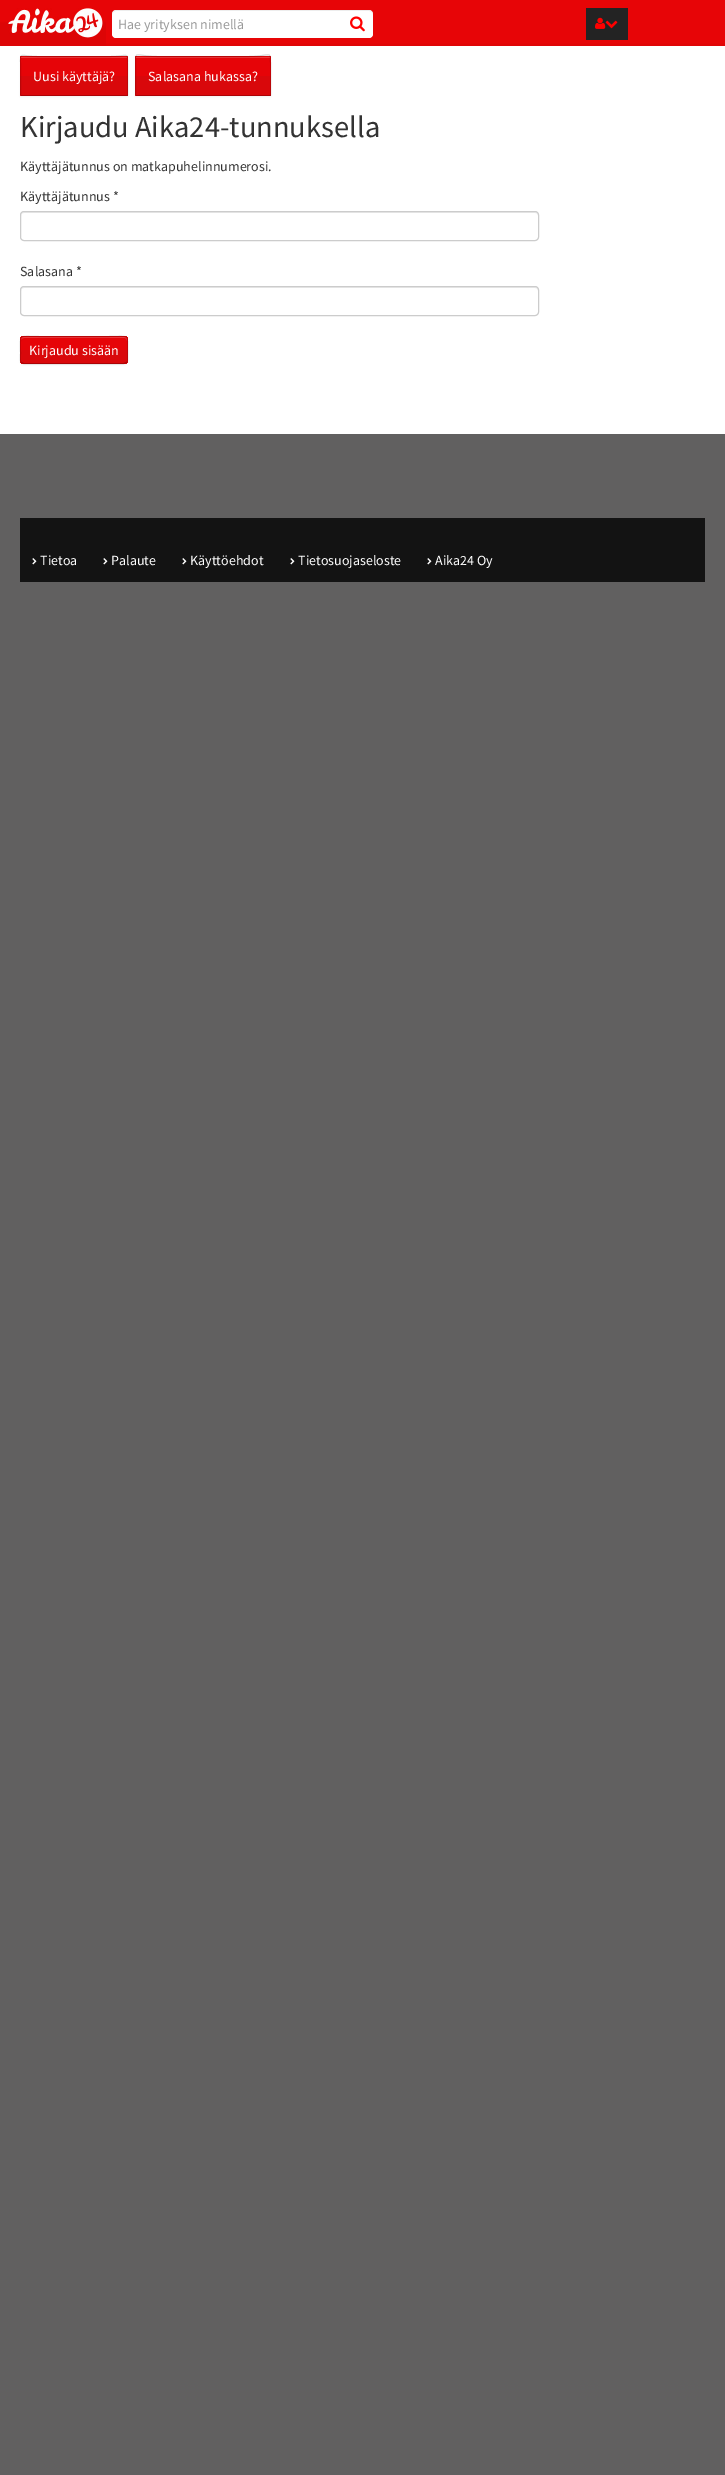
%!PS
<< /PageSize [725 2475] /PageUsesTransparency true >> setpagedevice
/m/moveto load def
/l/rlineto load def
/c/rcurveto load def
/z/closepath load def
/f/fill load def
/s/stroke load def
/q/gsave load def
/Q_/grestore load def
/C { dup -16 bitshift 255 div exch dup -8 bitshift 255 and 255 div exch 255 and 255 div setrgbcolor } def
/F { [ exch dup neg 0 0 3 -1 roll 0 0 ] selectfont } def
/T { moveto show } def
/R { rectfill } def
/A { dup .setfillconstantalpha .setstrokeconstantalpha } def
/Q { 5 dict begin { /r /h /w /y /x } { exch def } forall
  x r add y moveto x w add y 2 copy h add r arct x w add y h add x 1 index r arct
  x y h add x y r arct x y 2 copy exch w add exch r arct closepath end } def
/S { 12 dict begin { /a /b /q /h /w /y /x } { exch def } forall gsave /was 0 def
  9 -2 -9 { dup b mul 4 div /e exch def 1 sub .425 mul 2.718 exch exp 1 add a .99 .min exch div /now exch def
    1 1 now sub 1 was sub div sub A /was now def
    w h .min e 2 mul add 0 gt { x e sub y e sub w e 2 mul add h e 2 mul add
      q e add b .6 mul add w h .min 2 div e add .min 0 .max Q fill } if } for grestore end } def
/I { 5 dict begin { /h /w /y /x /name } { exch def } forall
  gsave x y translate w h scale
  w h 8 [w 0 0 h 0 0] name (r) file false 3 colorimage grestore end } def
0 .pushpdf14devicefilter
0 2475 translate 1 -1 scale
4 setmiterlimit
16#616060 C
0 0 725 2475 R
(1.rgb) 0 0 725 46 I
(2.rgb) 0 8 106 38 I
16#FFFFFF C
112 10 261 28 4 Q f
0.07 A
16#000000 C
116 11 m 253 0 l 2 0 4 2 4 4 c 0 -1 l 0 -2 -2 -4 -4 -4 c -253 0 l -2 0 -4 2 -4 4 c 0 1 l 0 -2 2 -4 4 -4 c z f
/SourceSansPro-Regular 14 F
1 A
16#999999 C
(Hae yrityksen nimellä) 118 29 T
(3.rgb) 350 16 15 16 I
16#232323 C
586 8 42 32 R
(4.rgb) 595 17 11 12 I
(5.rgb) 605 20 13 9 I
16#FFFFFF C
0 46 725 388 R
16#000000 C
20 57 108 40 1 1 .05 S
16#D9080B C
21 56 m 106 0 l .5 0 1 .5 1 1 c -108 0 l 0 -.5 .5 -1 1 -1 c z f
16#E60408 C
20 57 108 19 R
16#D9080B C
20 76 108 19 R
16#E60408 C
20 95 m 108 0 l 0 .5 -.5 1 -1 1 c -106 0 l -.5 0 -1 -.5 -1 -1 c z f
16#EB3639 C
21 57 106 1 R
0.25 A
16#000000 C
21 95 107 1 R
0.15 A
20.5 95.5 m 0 -32 l 0 -12.5 -1 -7 18 -7 c 71 0 l 19 0 18 -5.5 18 7 c 0 32 l s
1 A
16#FFFFFF C
(Uusi käyttäjä?) 33 81 T
16#000000 C
135 57 136 40 1 1 .05 S
16#D9080B C
136 56 m 134 0 l .5 0 1 .5 1 1 c -136 0 l 0 -.5 .5 -1 1 -1 c z f
16#E60408 C
135 57 136 19 R
16#D9080B C
135 76 136 19 R
16#E60408 C
135 95 m 136 0 l 0 .5 -.5 1 -1 1 c -134 0 l -.5 0 -1 -.5 -1 -1 c z f
16#EB3639 C
136 57 134 1 R
0.25 A
16#000000 C
136 95 135 1 R
0.15 A
135.5 95.5 m 0 -32 l 0 -14 -.5 -7 23 -7 c 89 0 l 23.5 0 23 -7 23 7 c 0 32 l s
1 A
16#FFFFFF C
(Salasana hukassa?) 148 81 T
/SourceSansPro-Regular 30.5 F
16#333333 C
(Kirjaudu Aika24-tunnuksella) 20 137 T
/SourceSansPro-Regular 14 F
(Käyttäjätunnus on matkapuhelinnumerosi.) 20 171 T
(Käyttäjätunnus *) 20 201 T
16#ECECEC C
24 213 m 511 0 l 2 0 3 1 3 3 c 0 -2 l -2 -2 l -512 0 l -2 0 -3 2 -3 4 c 0 -2 1 -3 3 -3 c z f
16#CCCCCC C
20.5 211.5 518 29 3.5 Q s
16#333333 C
(Salasana *) 20 276 T
16#ECECEC C
24 288 m 511 0 l 2 0 3 1 3 3 c 0 -2 l -2 -2 l -512 0 l -2 0 -3 2 -3 4 c 0 -2 1 -3 3 -3 c z f
16#CCCCCC C
20.5 286.5 518 29 3.5 Q s
16#000000 C
20 337 108 28 4 1 .05 S
q
20 336 108 28 4 Q clip newpath
16#D9080B C
20 336 108 1 R
16#E60408 C
20 337 108 13 R
16#D9080B C
20 350 108 13 R
16#E60408 C
20 363 108 1 R
Q_
16#EB3639 C
24 338 m 101 0 l 1 0 2 2 2 3 c 0 -1 l 0 -2 -1 -3 -3 -3 c -100 0 l -2 0 -3 1 -3 3 c 0 -1 1 -2 3 -2 c z 127 358 m 0 3 l z eofill
0.25 A
16#000000 C
126.5 362.5 m -2.5 1 l -100.5 0 l -2 -1 l s
0.15 A
21.5 362.5 m -2 -2 -1 -6.5 -1 -9 c 0 -21 -3 -17 20 -17 c 67 0 l 23 0 20 -4 20 17 c 0 2.5 1 7 -1 9 c s
1 A
16#FFFFFF C
(Kirjaudu sisään) 29 355 T
16#131313 C
20 518 685 64 R
(6.rgb) 32 558 5 7 I
16#FFFFFF C
(Tietoa) 40 565 T
(6.rgb) 103 558 5 7 I
(Palaute) 111 565 T
(6.rgb) 182 558 5 7 I
(Käyttöehdot) 190 565 T
(6.rgb) 290 558 5 7 I
(Tietosuojaseloste) 298 565 T
(6.rgb) 427 558 5 7 I
(Aika24 Oy) 435 565 T
.poppdf14devicefilter showpage
